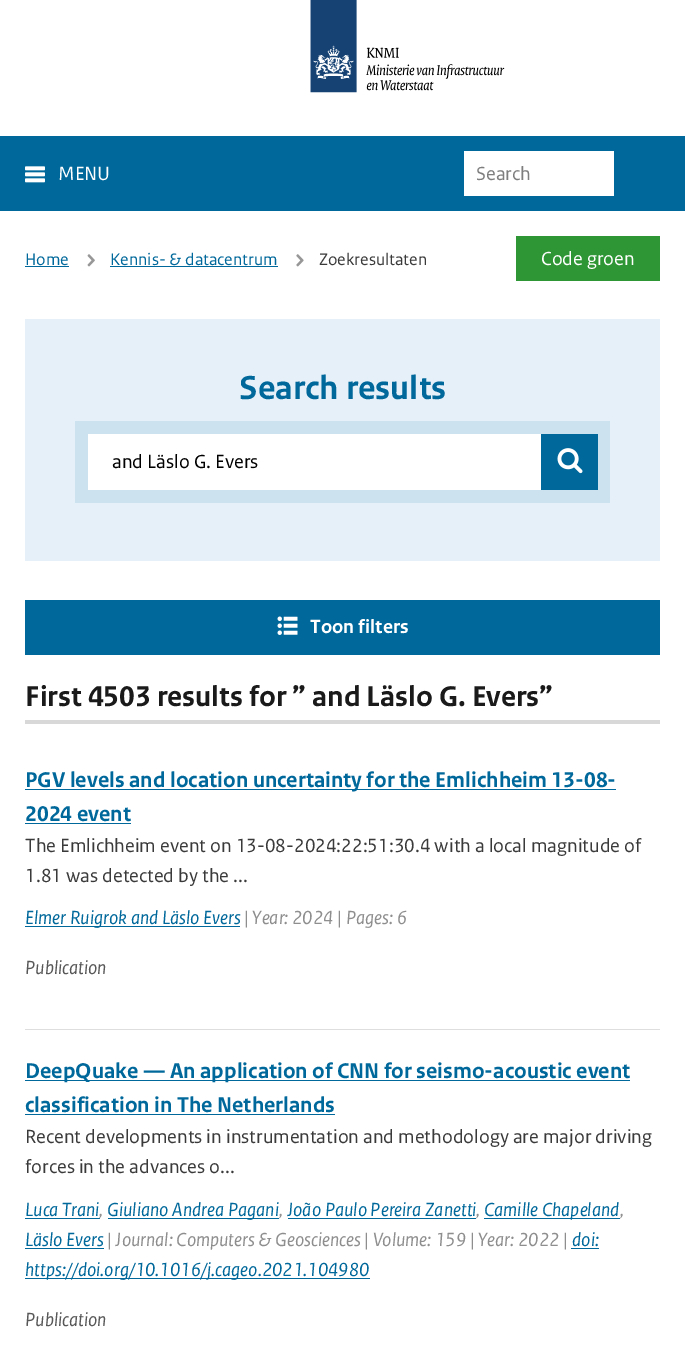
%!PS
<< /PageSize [685 1347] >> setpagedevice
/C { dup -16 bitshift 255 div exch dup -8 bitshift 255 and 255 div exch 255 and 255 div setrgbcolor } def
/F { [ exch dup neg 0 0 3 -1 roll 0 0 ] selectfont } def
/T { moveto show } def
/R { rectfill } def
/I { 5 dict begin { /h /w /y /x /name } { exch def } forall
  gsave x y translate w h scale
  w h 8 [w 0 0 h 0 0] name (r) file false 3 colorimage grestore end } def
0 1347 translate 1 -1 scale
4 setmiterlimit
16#FFFFFF C
0 0 685 1347 R
(1.rgb) 310 0 195 93 I
16#01689B C
0 136 685 75 R
(2.rgb) 25 166 20 17 I
/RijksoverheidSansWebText-Regular 20 F
16#FFFFFF C
(MENU) 58 180 T
464 151 150 45 R
16#7E7E7E C
(Search) 476 180 T
/RijksoverheidSansWebText-Regular 17.5 F
16#01689B C
(Home) 25 265 T
25 266 44 1 R
(3.rgb) 87 254 8 13 I
(Kennis- & datacentrum) 110 265 T
110 266 168 1 R
(4.rgb) 296 254 8 13 I
16#3A3A3A C
(Zoekresultaten) 319 265 T
16#2E9634 C
516 236 144 45 R
/RijksoverheidSansWebText-Regular 20 F
16#FFFFFF C
(Code groen) 541 265 T
16#E5F0F9 C
25 319 635 242 R
/RijksoverheidSansWebText-Bold 35 F
16#01689B C
(Search results) 239 399 T
16#CDE2EF C
75 421 535 82 R
16#FFFFFF C
88 434 453 56 R
/RijksoverheidSansWebText-Regular 20 F
16#000000 C
(and Läslo G. Evers) 112 468 T
16#01689B C
541 434 57 56 R
(5.rgb) 557 448 26 26 I
25 600 635 55 R
(6.rgb) 277 616 21 19 I
/RijksoverheidSansWebText-Bold 20 F
16#FFFFFF C
(Toon filters) 310 633 T
16#D8D8D8 C
25 720 635 4 R
/RijksoverheidSansWebText-Bold 30 F
16#1A1A1A C
(First 4503 results for ” and Läslo G. Evers”) 25 706 T
16#DEDEDE C
25 1029 635 1 R
16#01689B C
25 789 591 1 R
/RijksoverheidSansWebText-Bold 22.5 F
(PGV levels and location uncertainty for the Emlichheim 13-08-) 25 787 T
(2024 event) 25 821 T
25 823 106 1 R
/RijksoverheidSansWebText-Regular 20 F
16#3A3A3A C
(The Emlichheim event on 13-08-2024:22:51:30.4 with a local magnitude of) 25 852 T
(1.81 was detected by the ...) 25 882 T
16#01689B C
25 926 215 1 R
/RijksoverheidSansWebText-Italic 20 F
(Elmer Ruigrok and Läslo Evers) 25 924 T
16#8E8E8E C
(| Year: 2024 | Pages: 6) 244 924 T
16#585858 C
(Publication) 25 974 T
16#01689B C
25 1080 605 1 R
/RijksoverheidSansWebText-Bold 22.5 F
(DeepQuake — An application of CNN for seismo-acoustic event) 25 1078 T
(classification in The Netherlands) 25 1112 T
25 1114 310 1 R
/RijksoverheidSansWebText-Regular 20 F
16#3A3A3A C
(Recent developments in instrumentation and methodology are major driving) 25 1143 T
(forces in the advances o...) 25 1173 T
/RijksoverheidSansWebText-Italic 20 F
16#01689B C
(Luca Trani) 25 1216 T
25 1218 75 1 R
16#8E8E8E C
(,) 99 1216 T
16#01689B C
108 1218 171 1 R
(Giuliano Andrea Pagani) 107 1216 T
16#8E8E8E C
(,) 279 1216 T
16#01689B C
(João Paulo Pereira Zanetti) 287 1216 T
16#8E8E8E C
(,) 476 1216 T
16#01689B C
288 1218 188 1 R
484 1218 136 1 R
(Camille Chapeland) 484 1216 T
16#8E8E8E C
(,) 620 1216 T
16#01689B C
(Läslo Evers) 25 1246 T
25 1248 79 1 R
16#8E8E8E C
(| Journal: Computers & Geosciences | Volume: 159 | Year: 2022 |) 107 1246 T
16#01689B C
(doi:) 572 1246 T
571 1248 28 1 R
25 1278 345 1 R
(https://doi.org/10.1016/j.cageo.2021.104980) 25 1276 T
16#585858 C
(Publication) 25 1326 T
showpage
